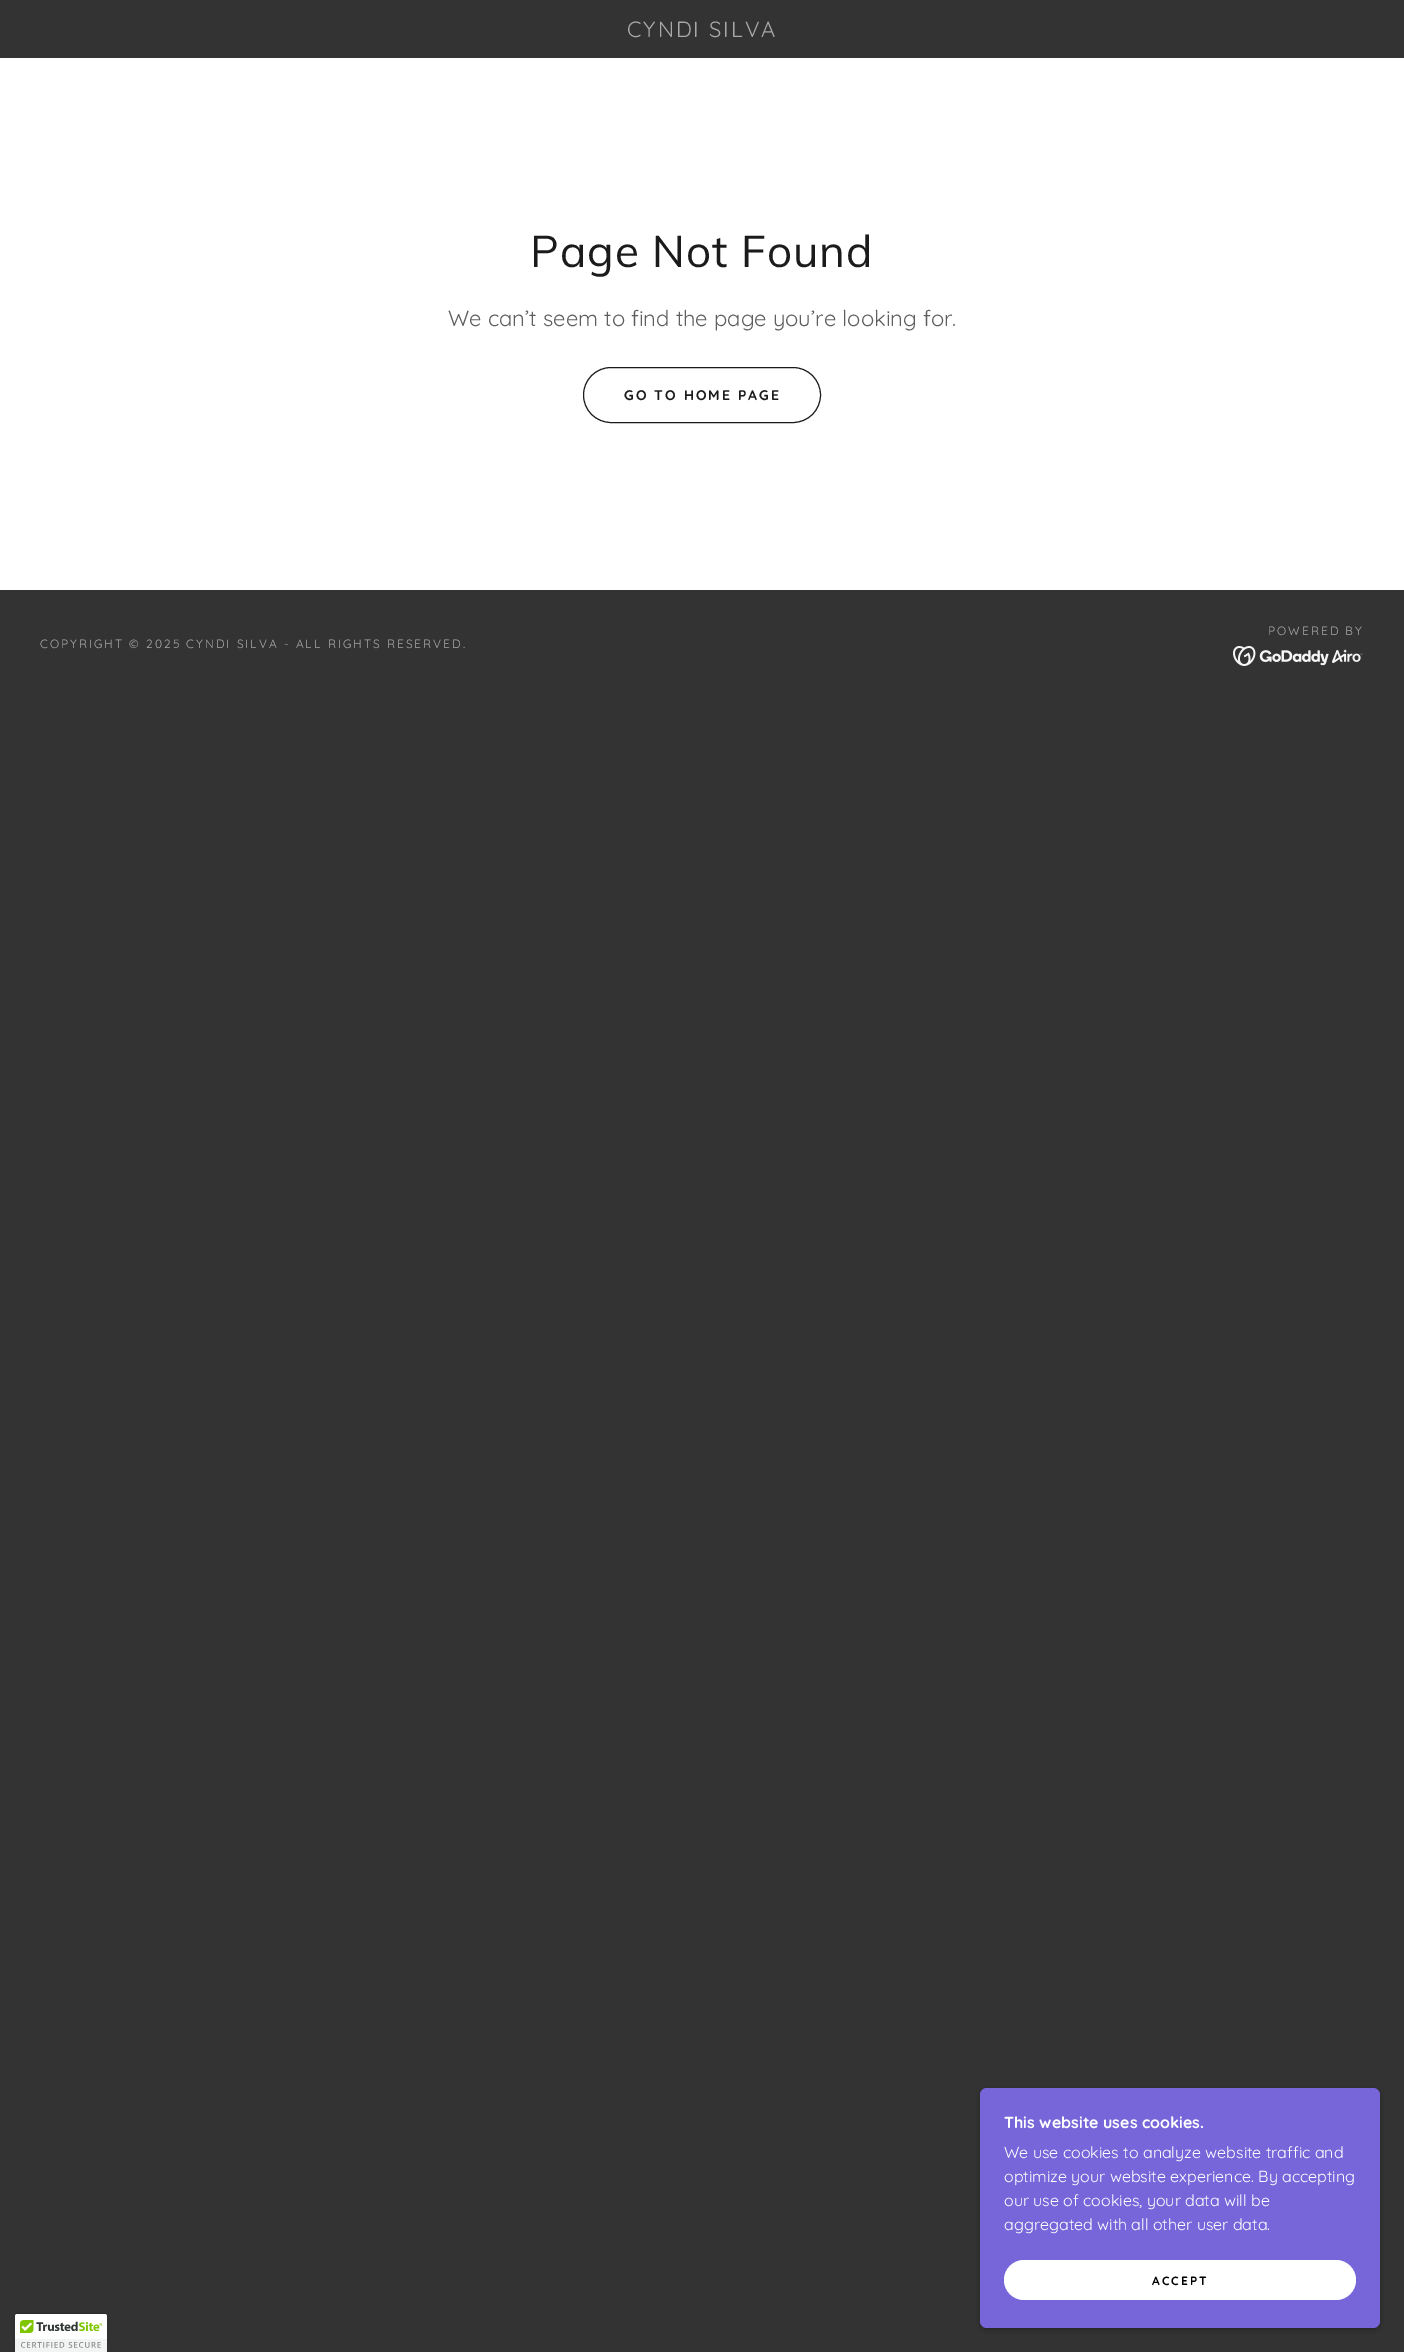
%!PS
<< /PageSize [1404 2352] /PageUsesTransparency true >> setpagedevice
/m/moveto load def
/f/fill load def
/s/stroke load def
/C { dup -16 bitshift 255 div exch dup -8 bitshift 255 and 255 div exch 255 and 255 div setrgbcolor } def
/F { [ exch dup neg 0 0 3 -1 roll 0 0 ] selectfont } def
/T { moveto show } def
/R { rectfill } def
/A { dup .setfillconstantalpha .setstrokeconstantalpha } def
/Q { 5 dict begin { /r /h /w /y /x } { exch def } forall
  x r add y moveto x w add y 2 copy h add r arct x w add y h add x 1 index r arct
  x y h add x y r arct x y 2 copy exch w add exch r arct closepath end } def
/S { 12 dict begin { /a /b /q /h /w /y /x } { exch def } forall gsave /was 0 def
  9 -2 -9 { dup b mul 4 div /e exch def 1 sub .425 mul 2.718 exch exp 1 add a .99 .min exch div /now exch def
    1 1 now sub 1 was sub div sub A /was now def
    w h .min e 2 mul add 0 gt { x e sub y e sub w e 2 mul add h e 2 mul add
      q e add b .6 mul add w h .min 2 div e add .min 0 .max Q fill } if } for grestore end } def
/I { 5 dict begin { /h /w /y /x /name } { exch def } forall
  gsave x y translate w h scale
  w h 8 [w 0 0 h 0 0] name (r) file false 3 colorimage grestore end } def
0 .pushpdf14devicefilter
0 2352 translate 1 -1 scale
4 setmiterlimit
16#333333 C
0 0 1404 2352 R
/Quicksand-Regular 22 F
16#A9A9A9 C
627 37 m 2 0 (CYNDI SILVA) ashow
16#FFFFFF C
0 58 1404 532 R
/Muli-Regular 44 F
16#1B1B1B C
530 267 m 1 0 (Page Not Found) ashow
/Quicksand-Regular 22 F
16#5E5E5E C
(We can’t seem to find the page you’re looking for.) 448 326 T
16#1B1B1B C
583.5 367.5 237 55 27.5 Q s
/Quicksand-Bold 14 F
624 400 m 2 0 (GO TO HOME PAGE) ashow
/Quicksand-Regular 12 F
16#A9A9A9 C
1268 635 m 2 0 (POWERED BY) ashow
(1.rgb) 1233 646 130 20 I
40 648 m 2 0 (COPYRIGHT © 2025 CYNDI SILVA - ALL RIGHTS RESERVED.) ashow
16#000000 C
980 2090 400 240 7 3 .3 S
16#7666D9 C
980 2088 400 240 7 Q f
/Quicksand-Bold 16 F
16#FFFFFF C
(This website uses cookies.) 1004 2128 T
/Quicksand-Regular 16 F
(We use cookies to analyze website traffic and) 1004 2158 T
(optimize your website experience. By accepting) 1004 2182 T
(our use of cookies, your data will be) 1004 2206 T
(aggregated with all other user data.) 1004 2230 T
1004 2260 352 40 20 Q f
/Quicksand-Bold 12 F
16#000000 C
1152 2285 m 2 0 (ACCEPT) ashow
15 2314 92 38 2 2.5 .2 S
(2.rgb) 15 2314 92 38 I
.poppdf14devicefilter showpage
